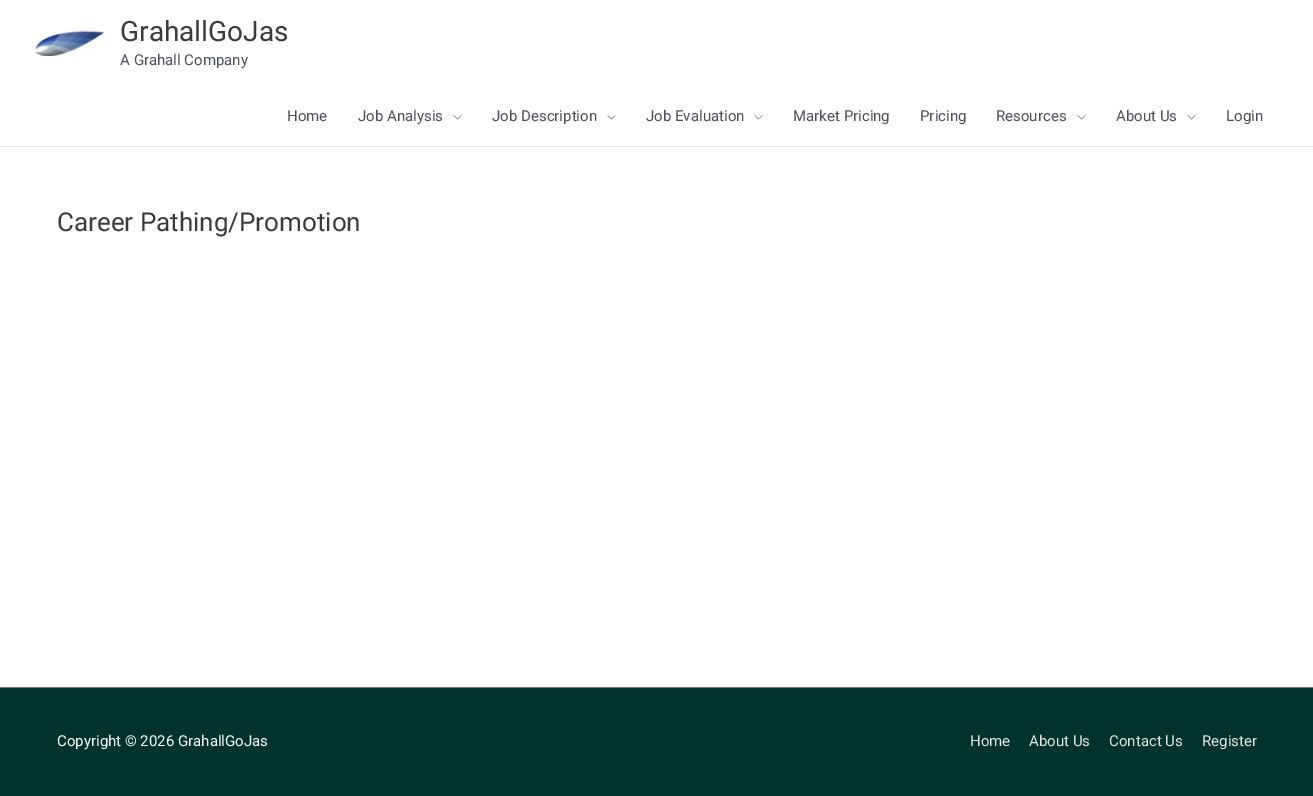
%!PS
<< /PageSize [1313 796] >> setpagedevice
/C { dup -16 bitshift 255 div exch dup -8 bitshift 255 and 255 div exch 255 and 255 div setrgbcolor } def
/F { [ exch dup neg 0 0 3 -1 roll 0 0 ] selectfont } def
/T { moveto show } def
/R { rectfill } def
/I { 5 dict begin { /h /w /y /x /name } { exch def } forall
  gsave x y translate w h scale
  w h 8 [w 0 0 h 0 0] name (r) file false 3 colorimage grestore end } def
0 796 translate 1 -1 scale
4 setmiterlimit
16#FFFFFF C
0 0 1313 796 R
16#E5E5E5 C
0 146 1313 1 R
(1.rgb) 35 30 70 26 I
/Roboto-Regular 28 F
16#3A3A3A C
(GrahallGoJas) 120 41 T
/Roboto-Regular 15 F
16#4B4F58 C
(A Grahall Company) 120 65 T
(Home) 287 121 T
(Job Analysis) 358 121 T
(2.rgb) 453 115 9 5 I
(Job Description) 492 121 T
(2.rgb) 607 115 9 5 I
(Job Evaluation) 646 121 T
(2.rgb) 754 115 9 5 I
(Market Pricing) 793 121 T
(Pricing) 920 121 T
(Resources) 996 121 T
(2.rgb) 1077 115 9 5 I
(About Us) 1116 121 T
(2.rgb) 1187 115 9 5 I
(Login) 1226 121 T
/Roboto-Regular 26 F
16#3A3A3A C
(Career Pathing/Promotion) 57 231 T
16#7A7A7A C
0 687 1313 1 R
16#00332D C
0 688 1313 108 R
/Roboto-Regular 15 F
16#FFFFFF C
(Copyright © 2026 GrahallGoJas) 57 746 T
16#E5E5E5 C
(Home) 970 746 T
(About Us) 1029 746 T
(Contact Us) 1109 746 T
(Register) 1202 746 T
showpage
